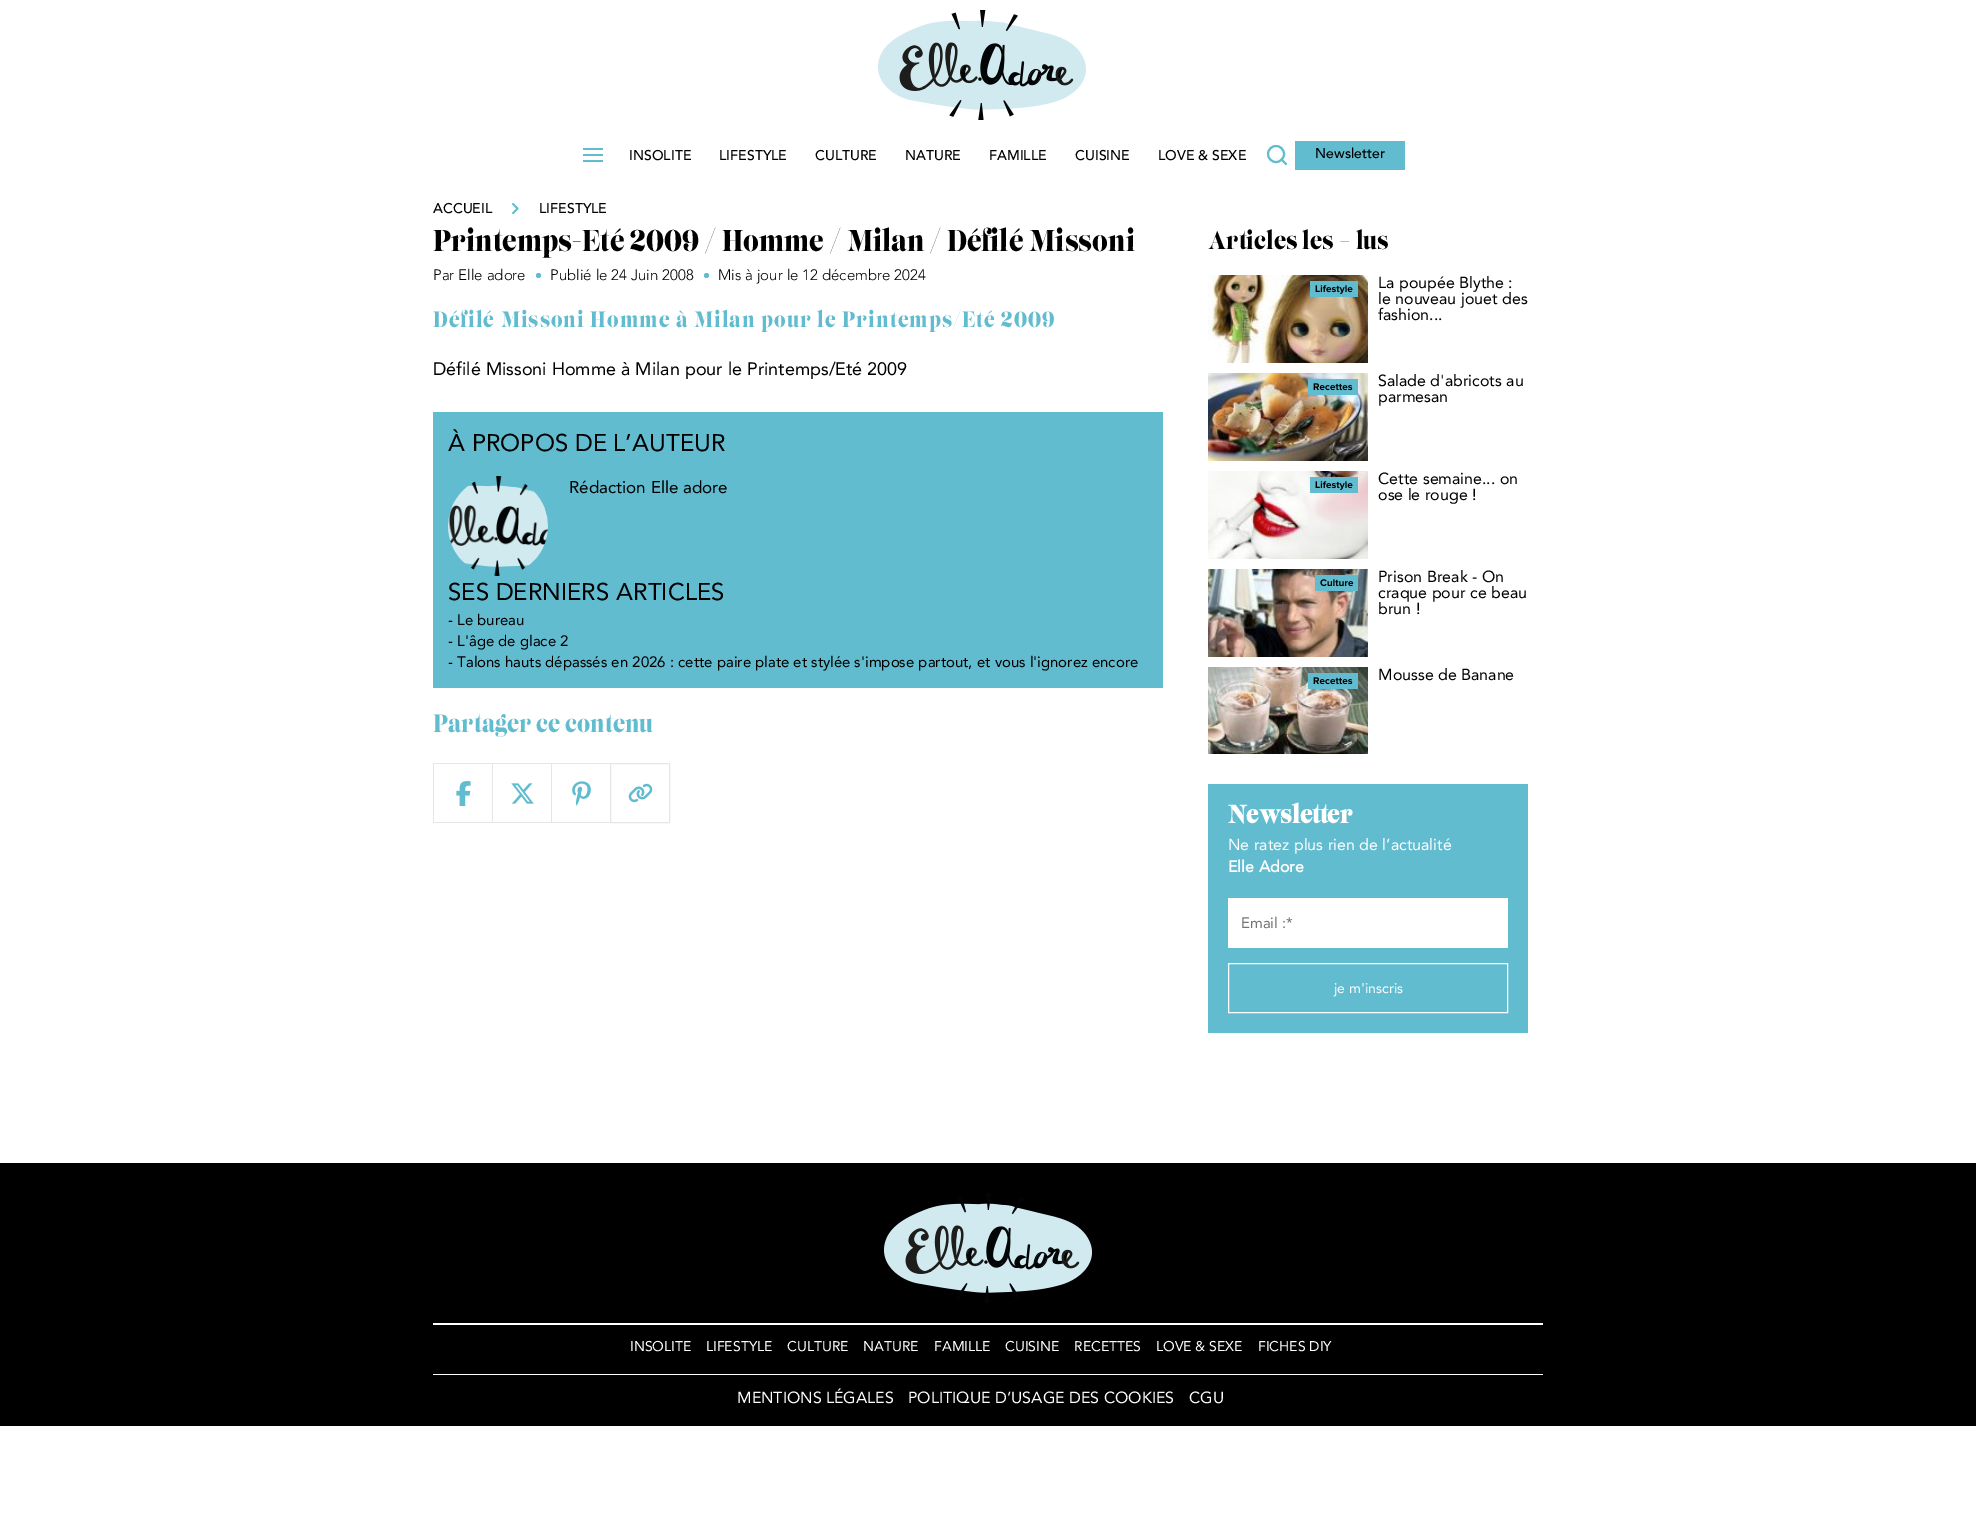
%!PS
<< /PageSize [1976 1521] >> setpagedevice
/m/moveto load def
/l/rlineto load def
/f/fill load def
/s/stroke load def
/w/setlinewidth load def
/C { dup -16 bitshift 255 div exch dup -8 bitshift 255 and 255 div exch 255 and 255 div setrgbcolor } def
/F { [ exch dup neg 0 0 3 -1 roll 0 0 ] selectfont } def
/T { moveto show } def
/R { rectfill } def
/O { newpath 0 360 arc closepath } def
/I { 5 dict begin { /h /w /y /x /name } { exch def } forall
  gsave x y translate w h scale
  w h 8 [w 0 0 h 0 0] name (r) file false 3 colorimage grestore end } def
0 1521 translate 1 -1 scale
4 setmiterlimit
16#FFFFFF C
0 0 1976 1521 R
(1.rgb) 878 10 208 110 I
16#61BCCF C
583 148 20 2 R
583 154 20 2 R
583 160 20 2 R
/Avenir-Medium 14 F
16#000000 C
(INSOLITE) 629 160 T
(LIFESTYLE) 719 160 T
(CULTURE) 815 160 T
(NATURE) 905 160 T
(FAMILLE) 989 160 T
(CUISINE) 1075 160 T
(LOVE & SEXE) 1158 160 T
16#61BCCF C
2 w
1276 154 8 O s
1 setlinecap
1 setlinejoin
1286 164 m -4.5 -4.5 l s
1295 141 110 29 R
16#000000 C
(Newsletter) 1315 158 T
(ACCUEIL) 433 213 T
(2.rgb) 512 203 7 11 I
(LIFESTYLE) 539 213 T
/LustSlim-Regular 30 F
(Printemps-Eté 2009 / Homme / Milan / Défilé Missoni) 433 251 T
/Avenir-Light 15 F
(Par Elle adore) 433 280 T
16#61BCCF C
538.5 275.5 2.5 O f
16#000000 C
(Publié le 24 Juin 2008) 550 280 T
16#61BCCF C
706.5 275.5 2.5 O f
16#000000 C
(Mis à jour le 12 décembre 2024) 718 280 T
/LustSlim-Regular 22 F
16#61BCCF C
433 327 m 1 0 (Défilé Missoni Homme à Milan pour le Printemps/Eté 2009) ashow
/Avenir-Regular 18 F
16#000000 C
(Défilé Missoni Homme à Milan pour le Printemps/Eté 2009) 433 375 T
16#61BCCF C
433 412 730 276 R
/Avenir-Regular 24 F
16#000000 C
(À PROPOS DE L’AUTEUR) 448 451 T
(3.rgb) 448 476 100 100 I
/Avenir-Regular 17 F
(Rédaction Elle adore) 569 493 T
/Avenir-Regular 24 F
(SES DERNIERS ARTICLES) 448 600 T
/Avenir-Regular 15 F
(- Le bureau) 448 625 T
(- L'âge de glace 2) 448 646 T
(- Talons hauts dépassés en 2026 : cette paire plate et stylée s'impose partout, et vous l'ignorez encore) 448 667 T
/LustSlim-Regular 25 F
16#61BCCF C
(Partager ce contenu) 433 732 T
16#E6E6E6 C
433 763 178 1 R
433 822 178 1 R
433 763 1 60 R
(4.rgb) 456 781 15 25 I
492 763 1 60 R
(5.rgb) 511 783 23 21 I
551 763 1 60 R
(6.rgb) 572 781 19 25 I
1 w
0 setlinecap
0 setlinejoin
610.5 763.5 59 59 rectstroke
(7.rgb) 628 783 25 20 I
16#000000 C
(Articles les + lus) 1208 249 T
(8.rgb) 1208 275 160 88 I
16#61BCCF C
1310 281 48 16 R
(9.rgb) 1315 285 38 9 I
/Avenir-Regular 16 F
16#000000 C
(La poupée Blythe :) 1378 288 T
(le nouveau jouet des) 1378 304 T
(fashion...) 1378 320 T
(10.rgb) 1208 373 160 88 I
16#61BCCF C
1308 379 50 16 R
(11.rgb) 1313 383 40 8 I
16#000000 C
(Salade d'abricots au) 1378 386 T
(parmesan) 1378 402 T
(12.rgb) 1208 471 160 88 I
16#61BCCF C
1310 477 48 16 R
(9.rgb) 1315 481 38 9 I
16#000000 C
(Cette semaine... on) 1378 484 T
(ose le rouge !) 1378 500 T
(13.rgb) 1208 569 160 88 I
16#61BCCF C
1315 575 43 16 R
(14.rgb) 1320 579 34 8 I
16#000000 C
(Prison Break - On) 1378 582 T
(craque pour ce beau) 1378 598 T
(brun !) 1378 614 T
(15.rgb) 1208 667 160 87 I
16#61BCCF C
1308 673 50 16 R
(11.rgb) 1313 677 40 8 I
16#000000 C
(Mousse de Banane) 1378 680 T
16#61BCCF C
1208 784 320 249 R
/LustSlim-Bold 25 F
16#FFFFFF C
(Newsletter) 1228 823 T
/Avenir-Regular 16 F
(Ne ratez plus rien de l’actualité) 1228 850 T
/Avenir-Bold 16 F
(Elle Adore) 1228 872 T
1228 898 280 50 R
/Avenir-Regular 15 F
16#757575 C
(Email :*) 1241 928 T
16#FFFFFF C
1228.5 963.5 279 49 rectstroke
/Avenir-Regular 14 F
(je m'inscris) 1334 993 T
16#000000 C
0 1163 1976 263 R
16#FFFFFF C
433 1323 1110 2 R
(16.rgb) 884 1193 208 110 I
(INSOLITE) 630 1351 T
(LIFESTYLE) 706 1351 T
(CULTURE) 787 1351 T
(NATURE) 863 1351 T
(FAMILLE) 934 1351 T
(CUISINE) 1005 1351 T
(RECETTES) 1074 1351 T
(LOVE & SEXE) 1156 1351 T
(FICHES DIY) 1258 1351 T
433 1374 1110 1 R
/Avenir-Regular 16 F
(MENTIONS LÉGALES) 737 1403 T
(POLITIQUE D’USAGE DES COOKIES) 908 1403 T
(CGU) 1189 1403 T
showpage
